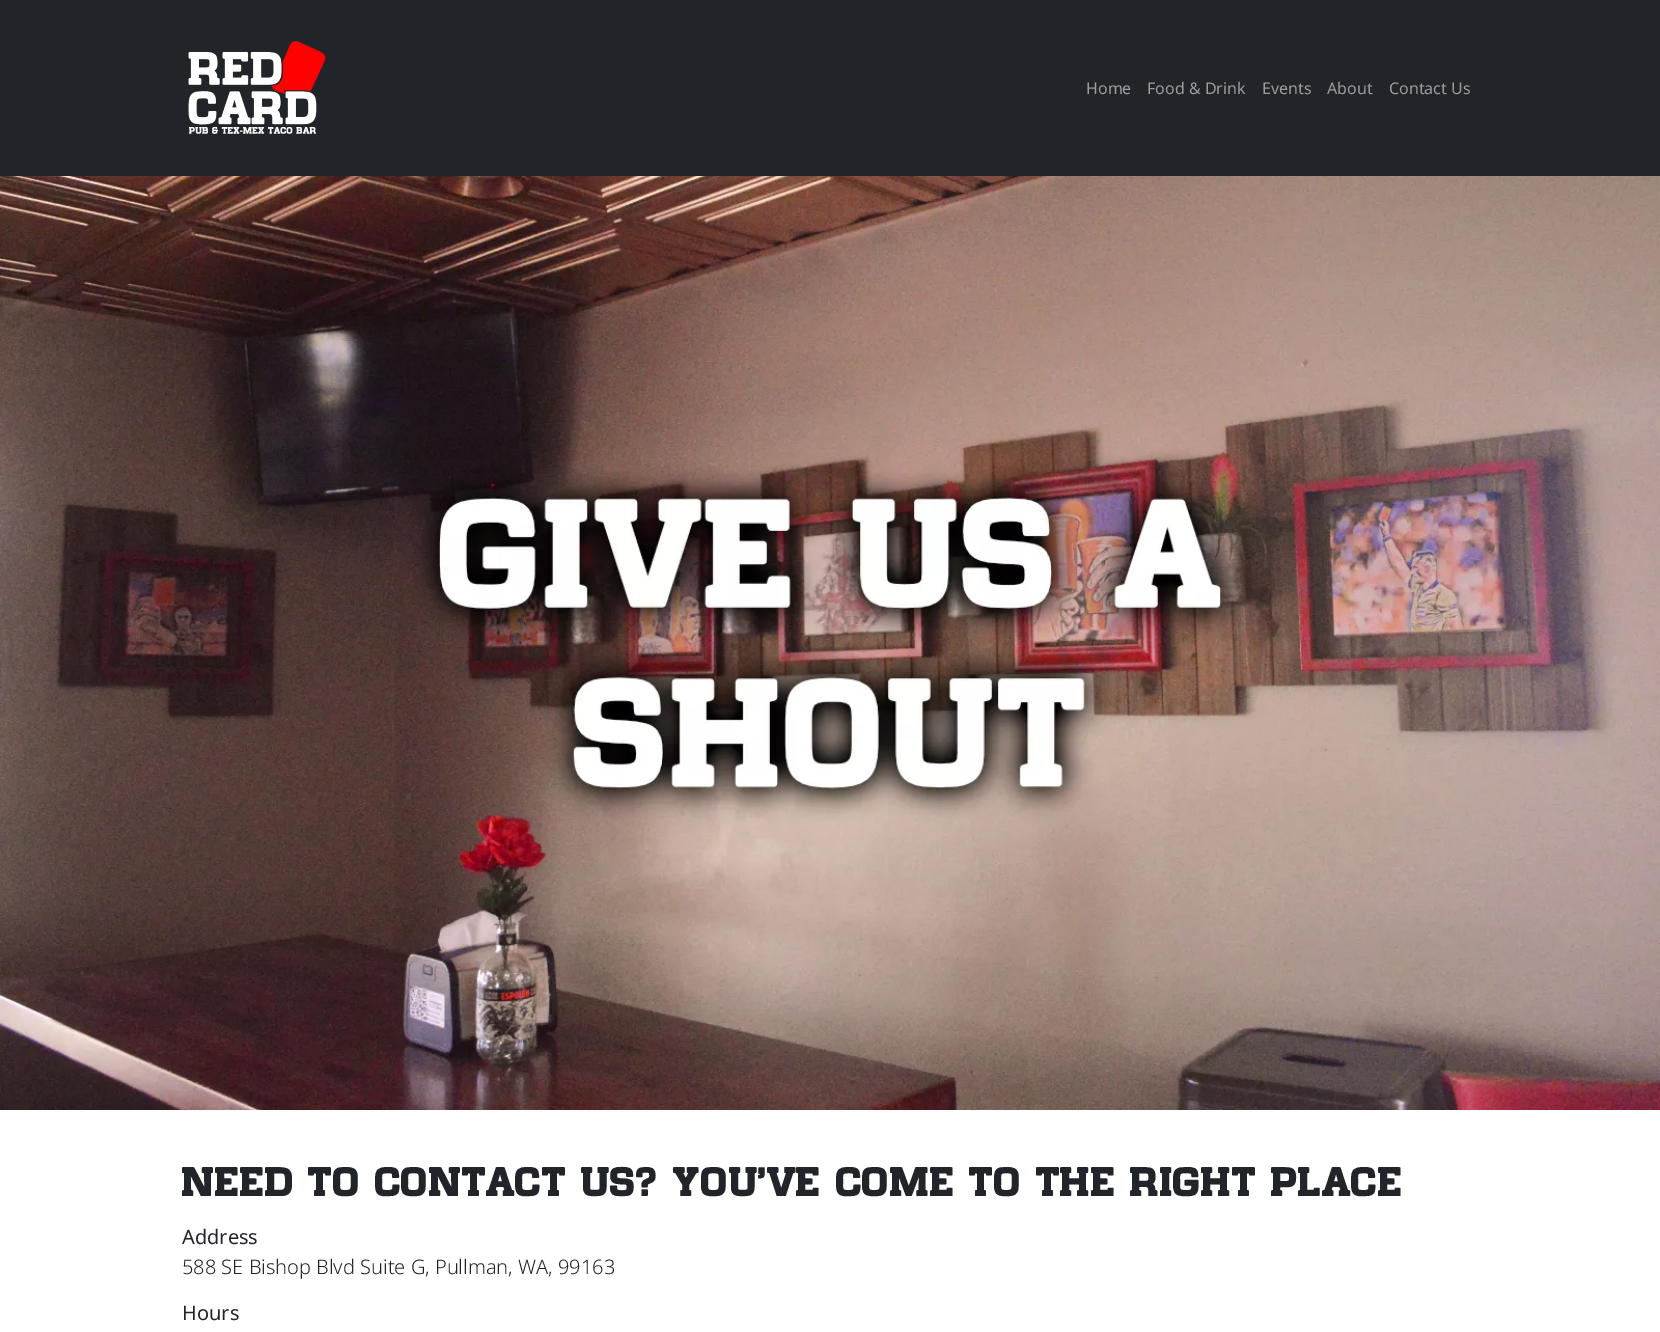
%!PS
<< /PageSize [1660 1332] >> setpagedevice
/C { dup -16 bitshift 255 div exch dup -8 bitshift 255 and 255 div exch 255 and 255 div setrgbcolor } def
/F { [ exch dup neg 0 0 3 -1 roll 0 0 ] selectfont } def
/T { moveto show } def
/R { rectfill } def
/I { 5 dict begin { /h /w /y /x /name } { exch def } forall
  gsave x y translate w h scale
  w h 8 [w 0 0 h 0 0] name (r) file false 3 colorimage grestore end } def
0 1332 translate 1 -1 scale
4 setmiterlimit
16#FFFFFF C
0 0 1660 1332 R
16#212529 C
0 0 1660 176 R
(1.rgb) 188 41 138 93 I
/NotoSans-Regular 16 F
16#9B9D9F C
(Home) 1086 94 T
(Food & Drink) 1147 94 T
(Events) 1262 94 T
(About) 1327 94 T
(Contact Us) 1389 94 T
(2.rgb) 0 176 1660 934 I
/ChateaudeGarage-Regular 40 F
16#212529 C
(Need to contact us? You've come to the right place) 182 1196 T
/NotoSans-Regular 20 F
(Address) 182 1244 T
/NotoSans-Light 20 F
(588 SE Bishop Blvd Suite G, Pullman, WA, 99163) 182 1274 T
/NotoSans-Regular 20 F
(Hours) 182 1320 T
showpage
